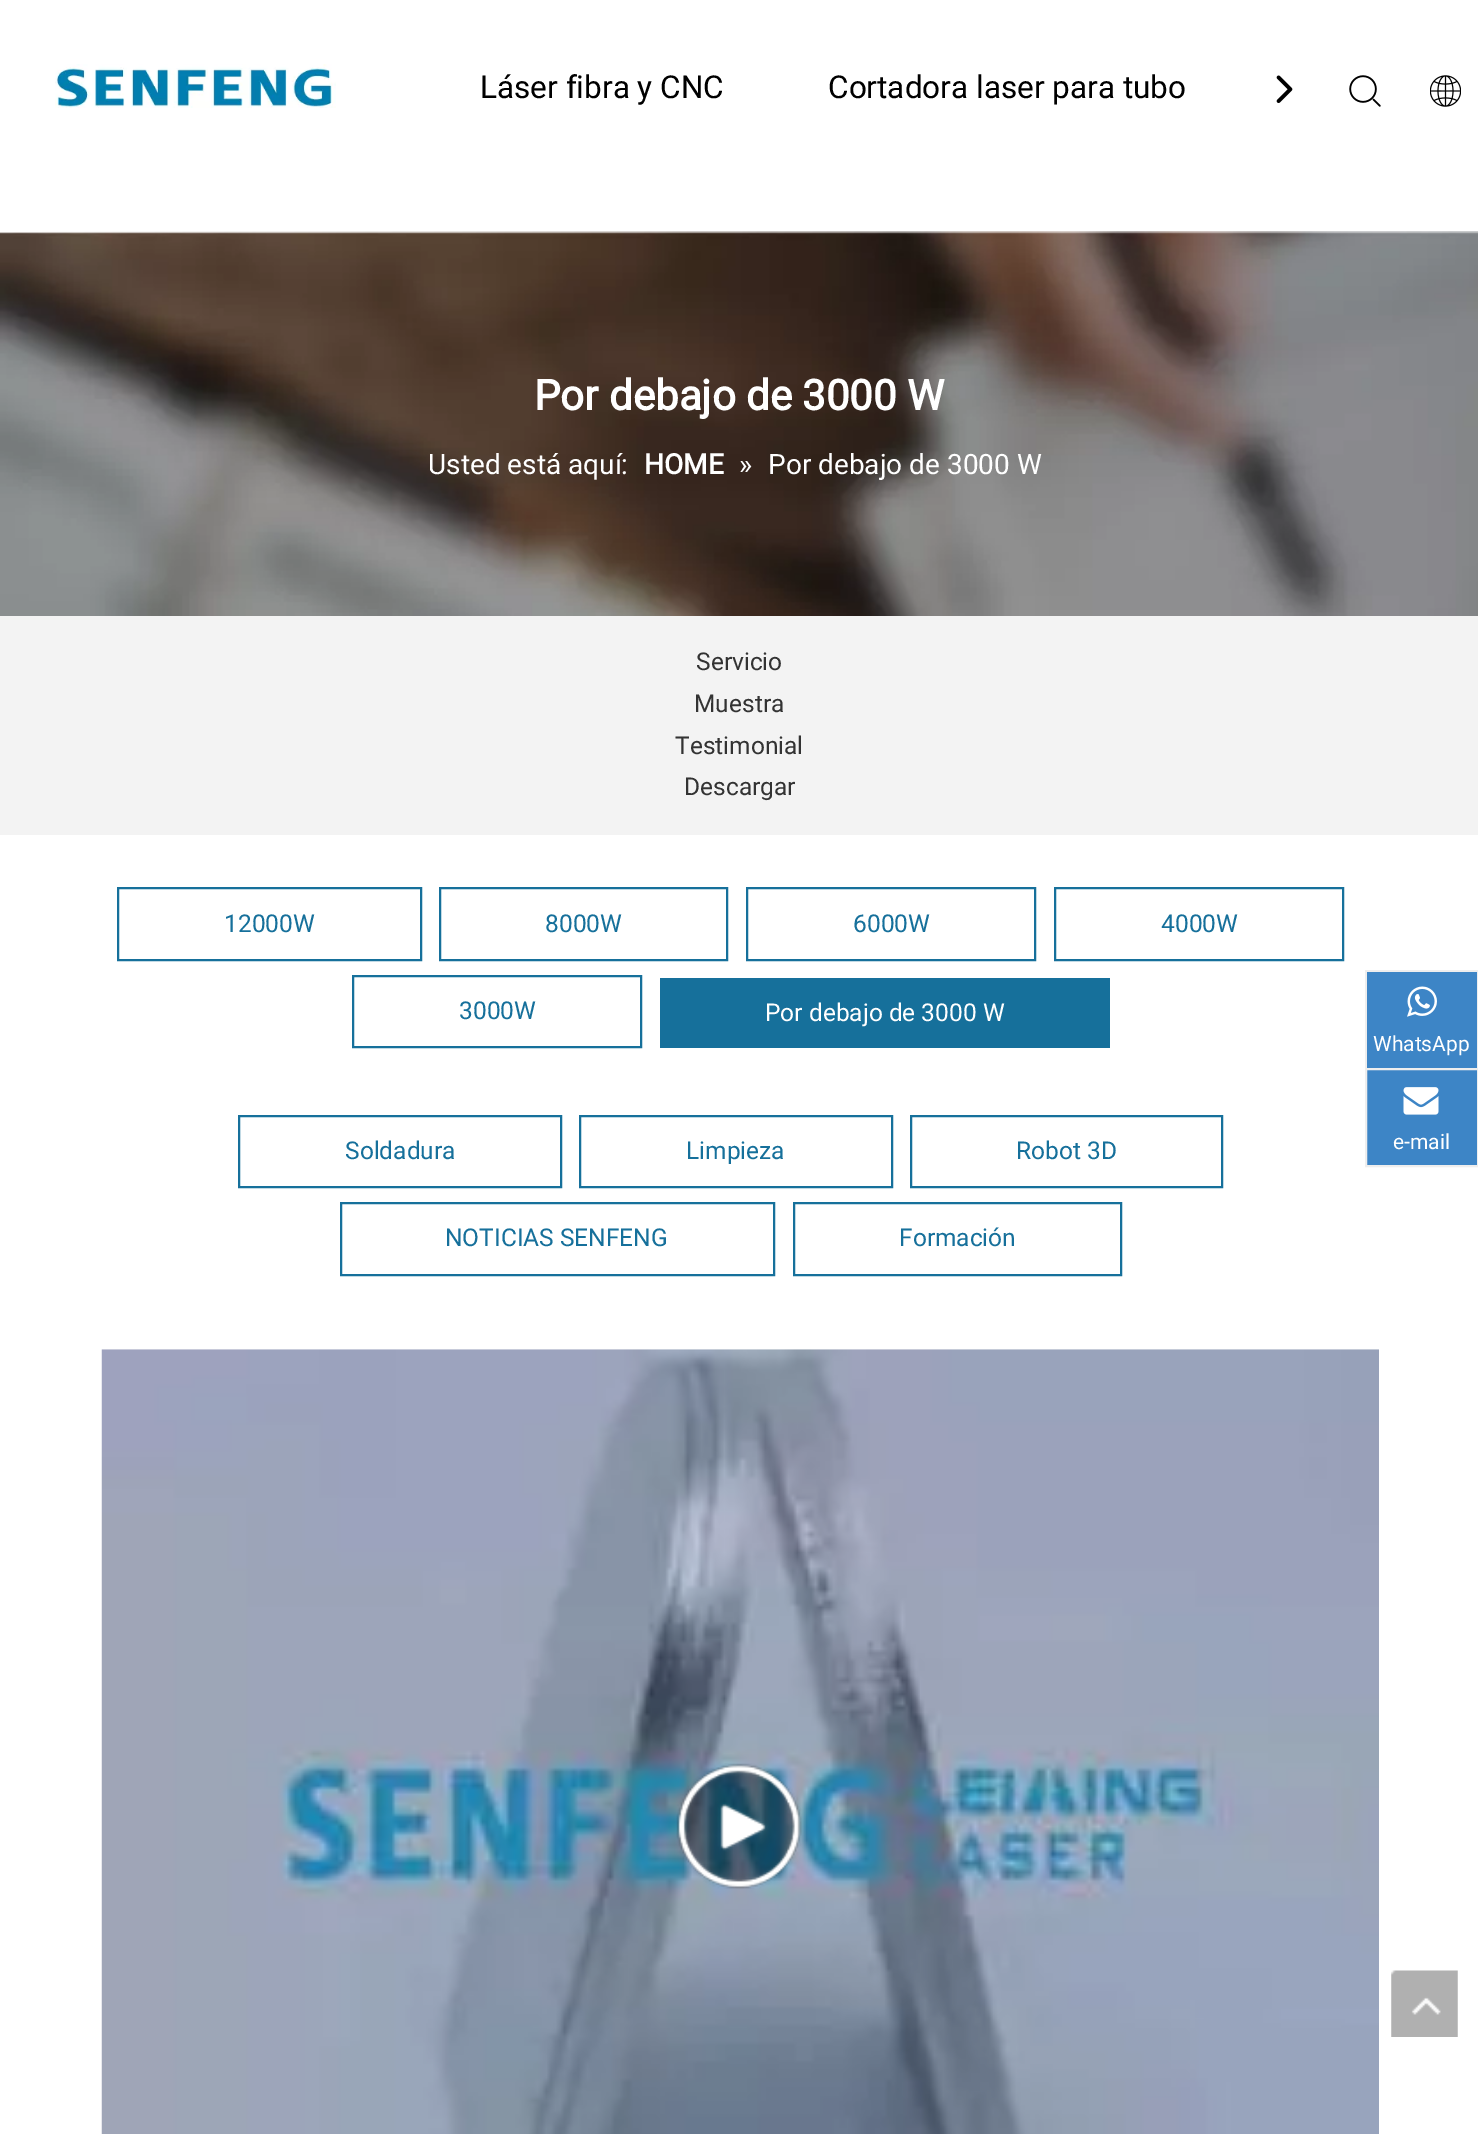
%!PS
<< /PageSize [1478 2134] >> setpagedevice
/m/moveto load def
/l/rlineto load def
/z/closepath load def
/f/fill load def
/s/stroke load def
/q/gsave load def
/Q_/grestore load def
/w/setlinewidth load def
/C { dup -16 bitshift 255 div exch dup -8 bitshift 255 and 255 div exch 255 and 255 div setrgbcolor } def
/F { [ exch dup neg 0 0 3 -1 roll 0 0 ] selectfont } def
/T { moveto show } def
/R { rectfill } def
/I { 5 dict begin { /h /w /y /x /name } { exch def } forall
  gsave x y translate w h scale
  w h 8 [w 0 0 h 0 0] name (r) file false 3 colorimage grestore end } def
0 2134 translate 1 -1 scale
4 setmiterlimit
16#FFFFFF C
0 0 1478 2134 R
(1.rgb) 55 64 281 44 I
/Roboto-Regular 31.5 F
16#000000 C
(Láser fibra y CNC) 480 98 T
(Cortadora laser para tubo) 828 98 T
(2.rgb) 1276 75 17 28 I
(3.rgb) 1349 75 32 32 I
(4.rgb) 1430 75 31 32 I
(5.rgb) 0 231 1478 385 I
/Roboto-Bold 42 F
16#FFFFFF C
(Por debajo de 3000 W) 534 410 T
/Roboto-Regular 28 F
(Usted está aquí:) 428 474 T
/Roboto-Bold 28 F
(HOME) 644 474 T
/Roboto-Regular 28 F
(») 739 474 T
(Por debajo de 3000 W) 768 474 T
16#F3F3F3 C
0 616 1478 219 R
/Roboto-Regular 24.5 F
16#333333 C
(Servicio) 696 670 T
(Muestra) 694 712 T
(Testimonial) 675 754 T
(Descargar) 684 795 T
16#16709B C
2 w
118 888 303 72 rectstroke
(12000W) 224 932 T
440 888 287 72 rectstroke
(8000W) 545 932 T
747 888 288 72 rectstroke
(6000W) 853 932 T
1055 888 288 72 rectstroke
(4000W) 1161 932 T
353 976 288 71 rectstroke
(3000W) 459 1019 T
660 978 450 70 R
16#FFFFFF C
(Por debajo de 3000 W) 765 1021 T
16#16709B C
239 1116 322 71 rectstroke
(Soldadura) 345 1159 T
580 1116 312 71 rectstroke
(Limpieza) 686 1159 T
911 1116 311 71 rectstroke
(Robot 3D) 1016 1159 T
341 1203 433 72 rectstroke
(NOTICIAS SENFENG) 445 1246 T
794 1203 327 72 rectstroke
(Formación) 899 1246 T
(6.rgb) 101 1349 1278 785 I
(7.rgb) 676 1763 126 126 I
16#3D85C6 C
1367 972 110 96 R
16#EEEEEE C
1365 970 113 2 R
1477 970 1 98 R
1365 970 2 98 R
(8.rgb) 1407 986 30 31 I
/Roboto-Regular 21 F
16#FFFFFF C
(WhatsApp) 1373 1051 T
16#3D85C6 C
1366 1069 m 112 0 l 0 97 l -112 0 l z q f Q_
16#EEEEEE C
s
(9.rgb) 1403 1087 36 28 I
16#FFFFFF C
(e-mail) 1393 1149 T
(10.rgb) 1391 1970 67 67 I
showpage
